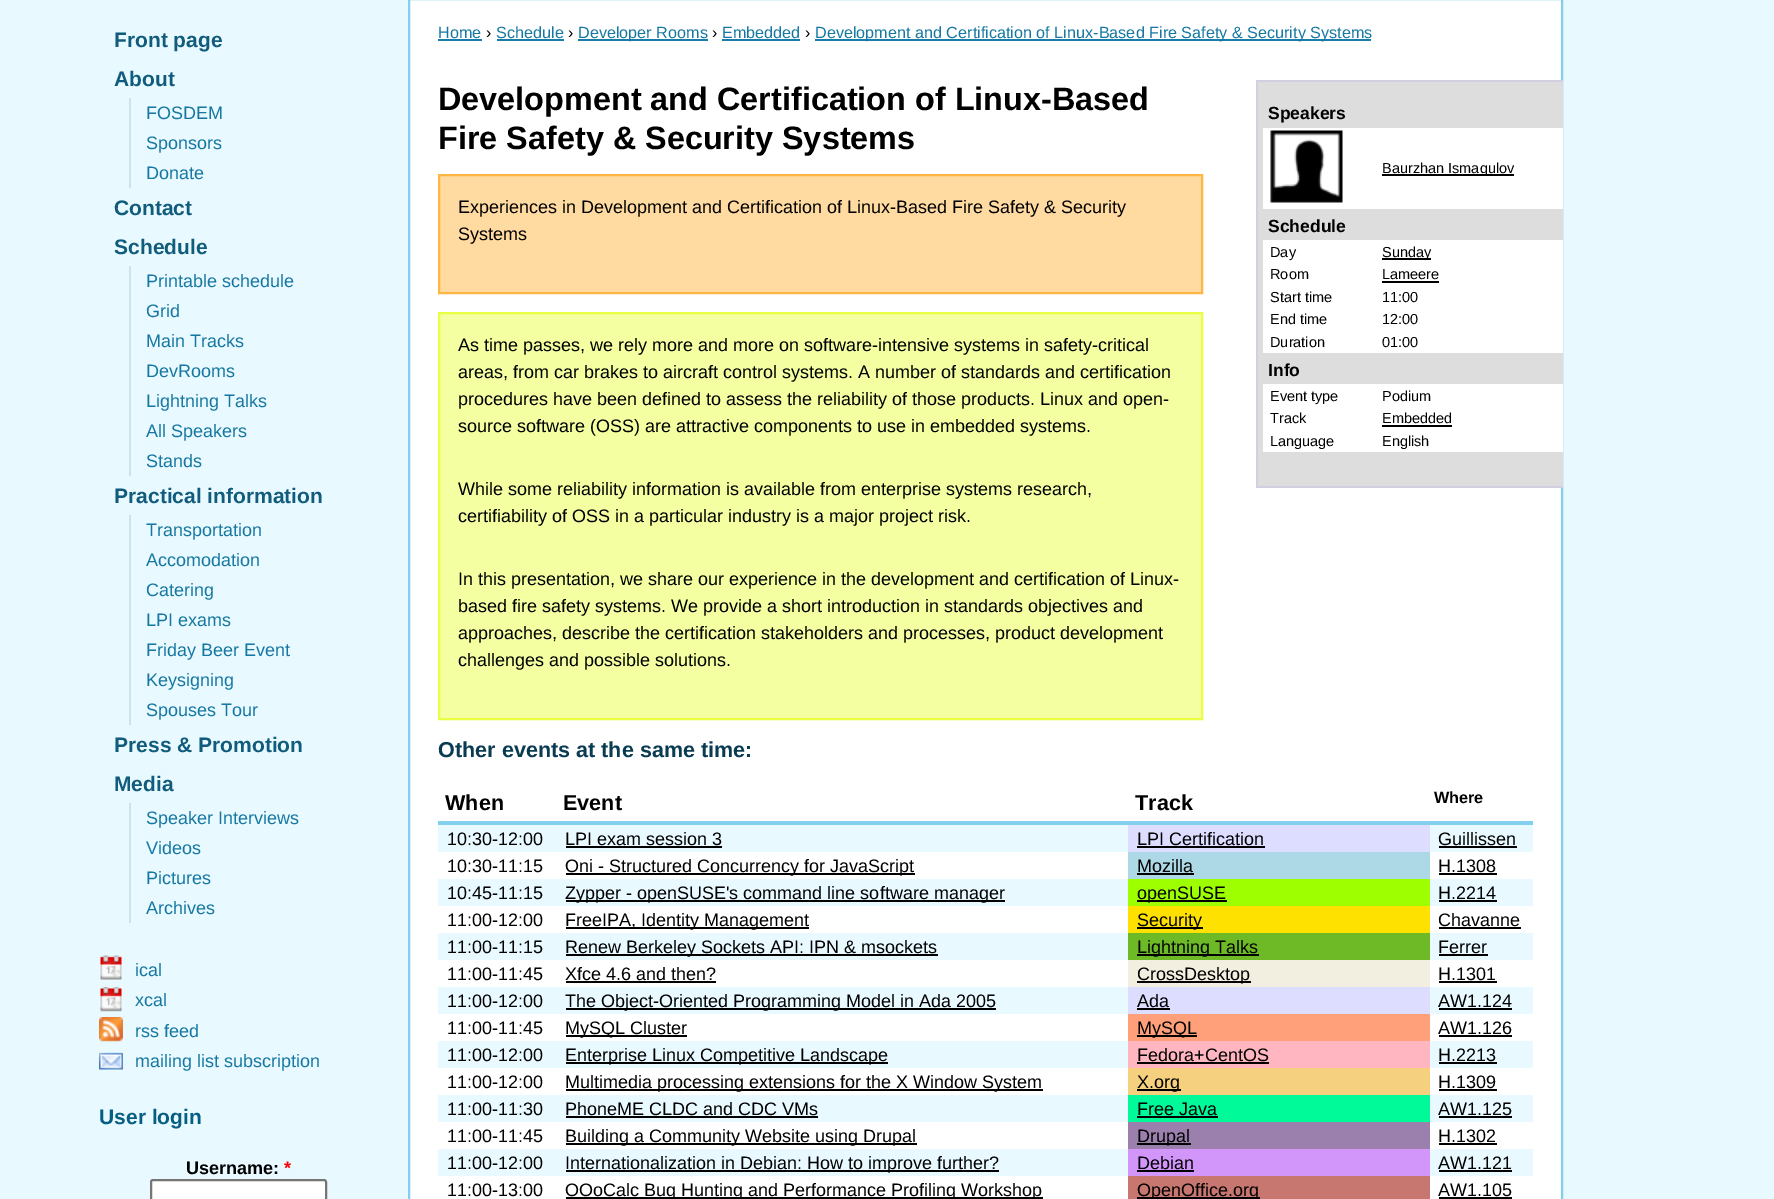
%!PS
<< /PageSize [1774 1199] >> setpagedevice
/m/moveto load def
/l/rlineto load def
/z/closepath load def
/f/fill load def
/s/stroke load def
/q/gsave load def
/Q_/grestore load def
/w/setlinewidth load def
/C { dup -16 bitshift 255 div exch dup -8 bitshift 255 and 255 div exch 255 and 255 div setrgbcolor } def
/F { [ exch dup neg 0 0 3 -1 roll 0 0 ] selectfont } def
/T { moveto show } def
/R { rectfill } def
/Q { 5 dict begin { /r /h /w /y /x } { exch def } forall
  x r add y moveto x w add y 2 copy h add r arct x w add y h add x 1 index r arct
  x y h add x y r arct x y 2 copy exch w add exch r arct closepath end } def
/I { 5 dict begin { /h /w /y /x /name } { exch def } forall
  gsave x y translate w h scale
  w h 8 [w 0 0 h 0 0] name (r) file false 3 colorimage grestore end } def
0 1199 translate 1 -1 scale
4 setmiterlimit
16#E8F9FF C
0 0 1774 1199 R
/LiberationSans-Bold 21 F
16#115C7D C
(Front page) 114 47 T
(About) 114 86 T
16#CDE3EC C
129 98 2 90 R
/LiberationSans-Regular 18 F
16#1678A2 C
(FOSDEM) 146 119 T
(Sponsors) 146 149 T
(Donate) 146 179 T
/LiberationSans-Bold 21 F
16#115C7D C
(Contact) 114 215 T
(Schedule) 114 254 T
16#CDE3EC C
129 266 2 210 R
/LiberationSans-Regular 18 F
16#1678A2 C
(Printable schedule) 146 287 T
(Grid) 146 317 T
(Main Tracks) 146 347 T
(DevRooms) 146 377 T
(Lightning Talks) 146 407 T
(All Speakers) 146 437 T
(Stands) 146 467 T
/LiberationSans-Bold 21 F
16#115C7D C
(Practical information) 114 503 T
16#CDE3EC C
129 515 2 210 R
/LiberationSans-Regular 18 F
16#1678A2 C
(Transportation) 146 536 T
(Accomodation) 146 566 T
(Catering) 146 596 T
(LPI exams) 146 626 T
(Friday Beer Event) 146 656 T
(Keysigning) 146 686 T
(Spouses Tour) 146 716 T
/LiberationSans-Bold 21 F
16#115C7D C
(Press & Promotion) 114 752 T
(Media) 114 791 T
16#CDE3EC C
129 803 2 120 R
/LiberationSans-Regular 18 F
16#1678A2 C
(Speaker Interviews) 146 824 T
(Videos) 146 854 T
(Pictures) 146 884 T
(Archives) 146 914 T
(1.rgb) 100 955 22 25 I
(ical) 135 976 T
(2.rgb) 100 987 22 25 I
(xcal) 135 1006 T
(3.rgb) 99 1017 24 25 I
(rss feed) 135 1037 T
(4.rgb) 99 1052 24 18 I
(mailing list subscription) 135 1067 T
/LiberationSans-Bold 21 F
16#075E83 C
(User login) 99 1124 T
/LiberationSans-Bold 18 F
16#000000 C
(Username:) 186 1174 T
16#FF0000 C
(*) 284 1174 T
16#FFFFFF C
151 1180 175 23 2 Q q f Q_
16#767676 C
2 w
s
16#FFFFFF C
409 -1 m 1153 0 l 0 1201 l -1153 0 l z q f Q_
16#83D0EE C
s
/LiberationSans-Regular 16.2 F
16#1678A2 C
(Home) 438 38 T
16#1A7DA7 C
438 39 44 2 R
16#000000 C
(›) 486 38 T
16#1678A2 C
(Schedule) 496 38 T
16#1A7DA7 C
497 39 67 2 R
16#000000 C
(›) 568 38 T
16#1A7DA7 C
578 39 130 2 R
16#1678A2 C
(Developer Rooms) 578 38 T
16#000000 C
(›) 712 38 T
16#1678A2 C
(Embedded) 722 38 T
16#1A7DA7 C
722 39 78 2 R
16#000000 C
(›) 805 38 T
16#1A7DA7 C
815 39 556 2 R
16#1678A2 C
(Development and Certification of Linux-Based Fire Safety & Security Systems) 815 38 T
/LiberationSans-Bold 32.4 F
16#000000 C
(Development and Certification of Linux-Based) 438 110 T
(Fire Safety & Security Systems) 438 149 T
16#DDDDDD C
1258 82 305 404 R
16#D0D0E0 C
1256 80 307 2 R
1256 486 307 2 R
1256 80 2 408 R
16#FFFFFF C
1263 128 300 324 R
/LiberationSans-Bold 17.5 F
16#000000 C
(Speakers) 1268 119 T
(5.rgb) 1270 130 73 73 I
1382 174 132 2 R
/LiberationSans-Regular 14.5 F
(Baurzhan Ismagulov) 1382 173 T
16#DDDDDD C
1263 209 300 31 R
/LiberationSans-Bold 17.5 F
16#000000 C
(Schedule) 1268 232 T
/LiberationSans-Regular 14.5 F
(Day) 1270 257 T
1382 258 49 2 R
(Sunday) 1382 257 T
(Room) 1270 279 T
(Lameere) 1382 279 T
1382 281 57 2 R
(Start time) 1270 302 T
(11:00) 1382 302 T
(End time) 1270 324 T
(12:00) 1382 324 T
(Duration) 1270 347 T
(01:00) 1382 347 T
16#DDDDDD C
1263 353 300 31 R
/LiberationSans-Bold 17.5 F
16#000000 C
(Info) 1268 376 T
/LiberationSans-Regular 14.5 F
(Event type) 1270 401 T
(Podium) 1382 401 T
(Track) 1270 423 T
(Embedded) 1382 423 T
1382 425 70 2 R
(Language) 1270 446 T
(English) 1382 446 T
16#FFDBA1 C
439 175 m 763 0 l 0 118 l -763 0 l z q f Q_
16#FFB643 C
s
/LiberationSans-Regular 18 F
16#000000 C
(Experiences in Development and Certification of Linux-Based Fire Safety & Security) 458 213 T
(Systems) 458 240 T
16#F4FFA1 C
439 313 m 763 0 l 0 406 l -763 0 l z q f Q_
16#E9FF42 C
s
16#000000 C
(As time passes, we rely more and more on software-intensive systems in safety-critical) 458 351 T
(areas, from car brakes to aircraft control systems. A number of standards and certification) 458 378 T
(procedures have been defined to assess the reliability of those products. Linux and open-) 458 405 T
(source software \(OSS\) are attractive components to use in embedded systems.) 458 432 T
(While some reliability information is available from enterprise systems research,) 458 495 T
(certifiability of OSS in a particular industry is a major project risk.) 458 522 T
(In this presentation, we share our experience in the development and certification of Linux-) 458 585 T
(based fire safety systems. We provide a short introduction in standards objectives and) 458 612 T
(approaches, describe the certification stakeholders and processes, product development) 458 639 T
(challenges and possible solutions.) 458 666 T
/LiberationSans-Bold 21.6 F
16#093B52 C
(Other events at the same time:) 438 757 T
16#83D0EE C
438 821 1095 4 R
16#000000 C
(When) 445 810 T
(Event) 563 810 T
(Track) 1135 810 T
/LiberationSans-Bold 16.2 F
(Where) 1434 803 T
16#E8F9FF C
438 825 1095 27 R
/LiberationSans-Regular 18 F
16#000000 C
(10:30-12:00) 447 845 T
(LPI exam session 3) 565 845 T
566 846 156 2 R
16#DDDDFF C
1128 825 302 27 R
16#000000 C
(LPI Certification) 1137 845 T
1137 846 128 2 R
(Guillissen) 1438 845 T
1439 846 78 2 R
(10:30-11:15) 447 872 T
566 873 349 2 R
(Oni - Structured Concurrency for JavaScript) 565 872 T
16#ADD8E6 C
1128 852 302 27 R
16#000000 C
(Mozilla) 1137 872 T
1137 873 57 2 R
(H.1308) 1438 872 T
1439 873 58 2 R
16#E8F9FF C
438 879 1095 27 R
16#000000 C
(10:45-11:15) 447 899 T
566 900 439 2 R
(Zypper - openSUSE's command line software manager) 565 899 T
16#9DFF00 C
1128 879 302 27 R
16#000000 C
1137 900 90 2 R
(openSUSE) 1137 899 T
(H.2214) 1438 899 T
1439 900 58 2 R
(11:00-12:00) 447 926 T
566 927 243 2 R
(FreeIPA, Identity Management) 565 926 T
16#FFE100 C
1128 906 302 27 R
16#000000 C
1137 927 66 2 R
(Security) 1137 926 T
(Chavanne) 1438 926 T
1439 927 82 2 R
16#E8F9FF C
438 933 1095 27 R
16#000000 C
(11:00-11:15) 447 953 T
566 954 372 2 R
(Renew Berkeley Sockets API: IPN & msockets) 565 953 T
16#6EB926 C
1128 933 302 27 R
16#000000 C
1137 954 122 2 R
(Lightning Talks) 1137 953 T
(Ferrer) 1438 953 T
1439 954 49 2 R
(11:00-11:45) 447 980 T
(Xfce 4.6 and then?) 565 980 T
566 981 150 2 R
16#F2EFE1 C
1128 960 302 27 R
16#000000 C
1137 981 114 2 R
(CrossDesktop) 1137 980 T
(H.1301) 1438 980 T
1439 981 58 2 R
16#E8F9FF C
438 987 1095 27 R
16#000000 C
(11:00-12:00) 447 1007 T
566 1008 430 2 R
(The Object-Oriented Programming Model in Ada 2005) 565 1007 T
16#DDDDFF C
1128 987 302 27 R
16#000000 C
(Ada) 1137 1007 T
1137 1008 33 2 R
(AW1.124) 1438 1007 T
1439 1008 73 2 R
(11:00-11:45) 447 1034 T
566 1035 121 2 R
(MySQL Cluster) 565 1034 T
16#FFA07A C
1128 1014 302 27 R
16#000000 C
1137 1035 60 2 R
(MySQL) 1137 1034 T
(AW1.126) 1438 1034 T
1439 1035 73 2 R
16#E8F9FF C
438 1041 1095 27 R
16#000000 C
(11:00-12:00) 447 1061 T
566 1062 322 2 R
(Enterprise Linux Competitive Landscape) 565 1061 T
16#FFB6C1 C
1128 1041 302 27 R
16#000000 C
(Fedora+CentOS) 1137 1061 T
1137 1062 132 2 R
(H.2213) 1438 1061 T
1439 1062 58 2 R
(11:00-12:00) 447 1088 T
566 1089 477 2 R
(Multimedia processing extensions for the X Window System) 565 1088 T
16#F5D07F C
1128 1068 302 27 R
16#000000 C
1137 1089 44 2 R
(X.org) 1137 1088 T
(H.1309) 1438 1088 T
1439 1089 58 2 R
16#E8F9FF C
438 1095 1095 27 R
16#000000 C
(11:00-11:30) 447 1115 T
(PhoneME CLDC and CDC VMs) 565 1115 T
566 1116 252 2 R
16#00FA9A C
1128 1095 302 27 R
16#000000 C
(Free Java) 1137 1115 T
1137 1116 81 2 R
(AW1.125) 1438 1115 T
1439 1116 73 2 R
(11:00-11:45) 447 1142 T
566 1143 351 2 R
(Building a Community Website using Drupal) 565 1142 T
16#9B7FAD C
1128 1122 302 27 R
16#000000 C
1137 1143 54 2 R
(Drupal) 1137 1142 T
(H.1302) 1438 1142 T
1439 1143 58 2 R
16#E8F9FF C
438 1149 1095 27 R
16#000000 C
(11:00-12:00) 447 1169 T
566 1170 433 2 R
(Internationalization in Debian: How to improve further?) 565 1169 T
16#D295FA C
1128 1149 302 27 R
16#000000 C
(Debian) 1137 1169 T
1137 1170 57 2 R
(AW1.121) 1438 1169 T
1439 1170 73 2 R
(11:00-13:00) 447 1196 T
566 1197 477 2 R
(OOoCalc Bug Hunting and Performance Profiling Workshop) 565 1196 T
16#C77670 C
1128 1176 302 23 R
16#000000 C
1137 1197 123 2 R
(OpenOffice.org) 1137 1196 T
(AW1.105) 1438 1196 T
1439 1197 73 2 R
showpage
